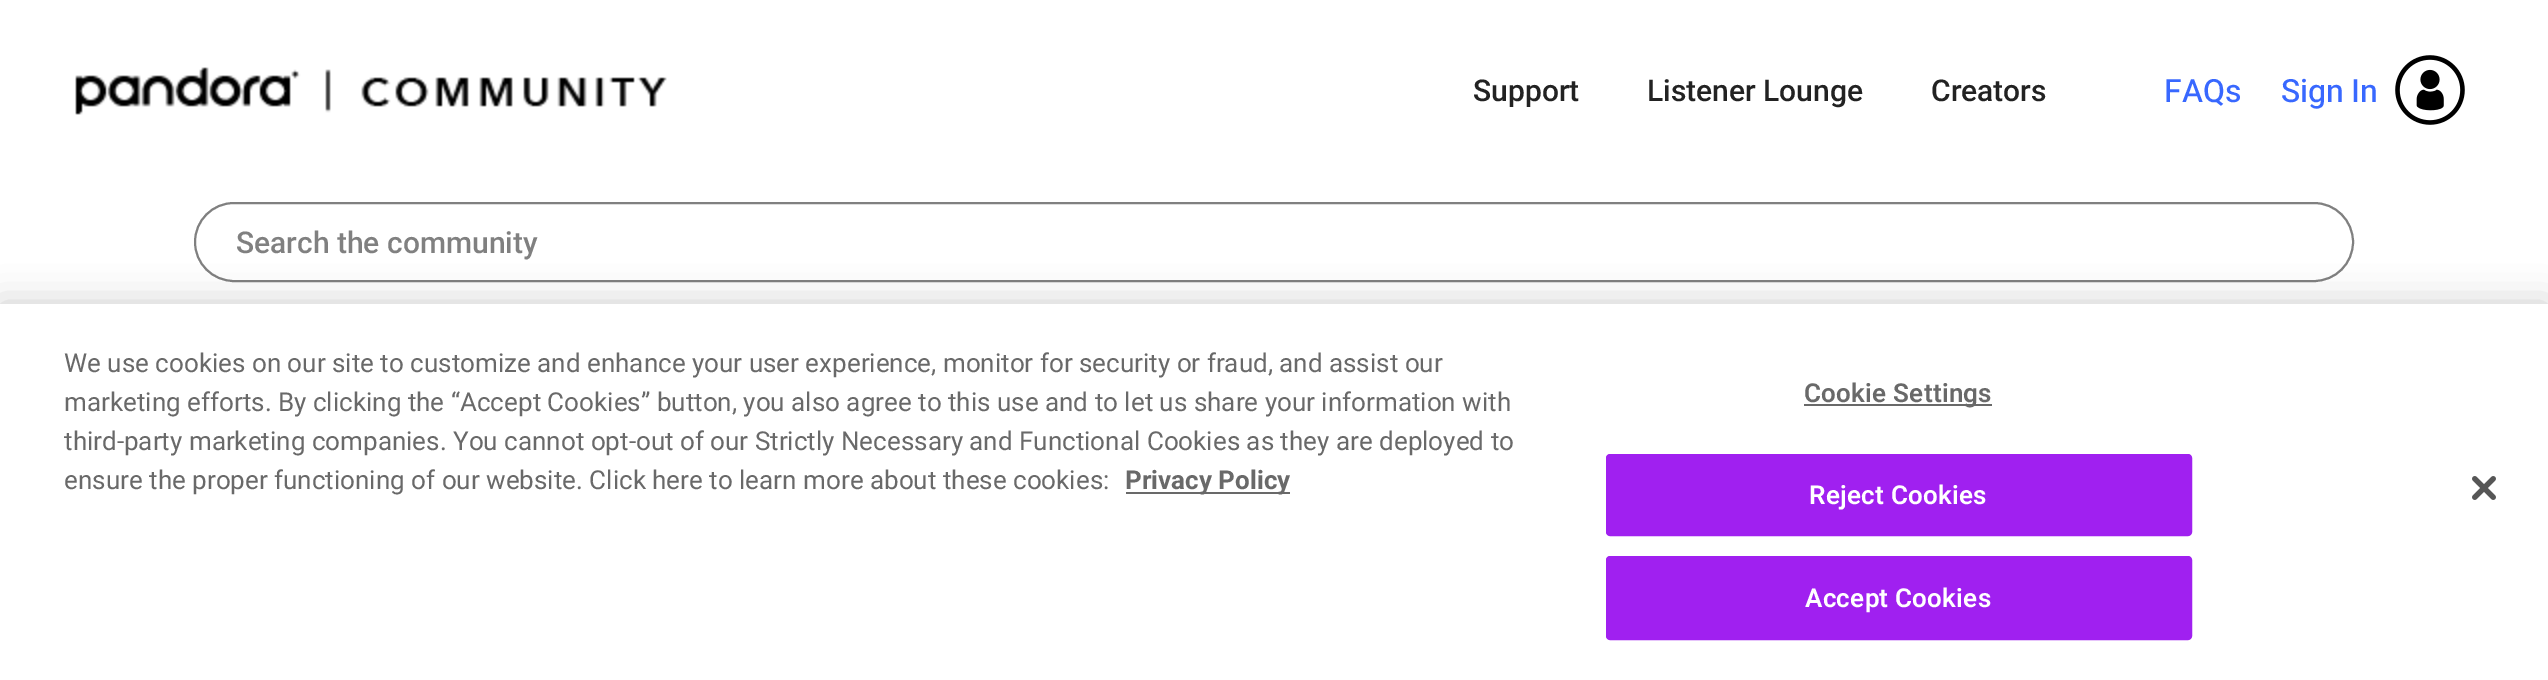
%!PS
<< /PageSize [2548 680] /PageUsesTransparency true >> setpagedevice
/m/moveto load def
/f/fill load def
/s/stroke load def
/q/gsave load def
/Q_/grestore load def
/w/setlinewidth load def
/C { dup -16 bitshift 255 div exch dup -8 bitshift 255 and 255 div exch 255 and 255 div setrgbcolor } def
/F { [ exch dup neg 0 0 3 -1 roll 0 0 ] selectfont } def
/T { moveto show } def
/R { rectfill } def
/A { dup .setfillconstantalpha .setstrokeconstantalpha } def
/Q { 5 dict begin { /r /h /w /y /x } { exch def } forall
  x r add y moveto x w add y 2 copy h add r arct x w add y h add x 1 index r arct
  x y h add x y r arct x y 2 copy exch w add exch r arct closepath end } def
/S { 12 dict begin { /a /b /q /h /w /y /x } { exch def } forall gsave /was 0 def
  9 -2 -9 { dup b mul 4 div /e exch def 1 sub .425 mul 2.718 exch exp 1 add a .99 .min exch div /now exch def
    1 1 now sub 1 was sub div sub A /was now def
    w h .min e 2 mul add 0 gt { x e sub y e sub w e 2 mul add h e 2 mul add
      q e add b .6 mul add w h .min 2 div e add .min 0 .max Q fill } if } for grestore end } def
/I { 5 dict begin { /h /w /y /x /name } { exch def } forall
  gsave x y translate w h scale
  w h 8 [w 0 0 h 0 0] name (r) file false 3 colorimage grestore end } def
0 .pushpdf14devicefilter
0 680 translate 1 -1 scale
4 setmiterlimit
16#FFFFFF C
0 0 2548 680 R
(1.rgb) 75 67 592 48 I
/Roboto-Medium 30 F
16#222222 C
(Support) 1473 101 T
(Listener Lounge) 1647 101 T
(Creators) 1931 101 T
/Roboto-Regular 32 F
16#3868FF C
(FAQs) 2164 102 T
2281 102 m -1 0 32 (Sign In) widthshow
(2.rgb) 2395 55 70 70 I
16#808080 C
2 w
195 203 2158 78 39 Q s
/Roboto-Medium 30 F
(Search the community) 236 253 T
16#000000 C
0 304 2548 376 0 18 .2 S
16#FFFFFF C
0 304 2548 376 R
/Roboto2-Regular 26.02 F
16#696969 C
(We use cookies on our site to customize and enhance your user experience, monitor for security or fraud, and assist our) 64 372 T
(marketing efforts. By clicking the “Accept Cookies” button, you also agree to this use and to let us share your information with) 64 411 T
(third-party marketing companies. You cannot opt-out of our Strictly Necessary and Functional Cookies as they are deployed to) 64 450 T
(ensure the proper functioning of our website. Click here to learn more about these cookies:) 64 489 T
1126 492 164 2 R
/Roboto-Bold 26.02 F
(Privacy Policy) 1125 489 T
1804 404 188 2 R
/Roboto-SemiBold 26.02 F
1804 402 m .25 0 (Cookie Settings) ashow
16#A020F0 C
1607 455 584 80 3 Q q f Q_
s
16#FFFFFF C
1809 504 m .25 0 (Reject Cookies) ashow
16#A020F0 C
1607 557 584 82 3 Q q f Q_
s
16#FFFFFF C
1805 607 m .25 0 (Accept Cookies) ashow
(3.rgb) 2472 476 24 24 I
.poppdf14devicefilter showpage
